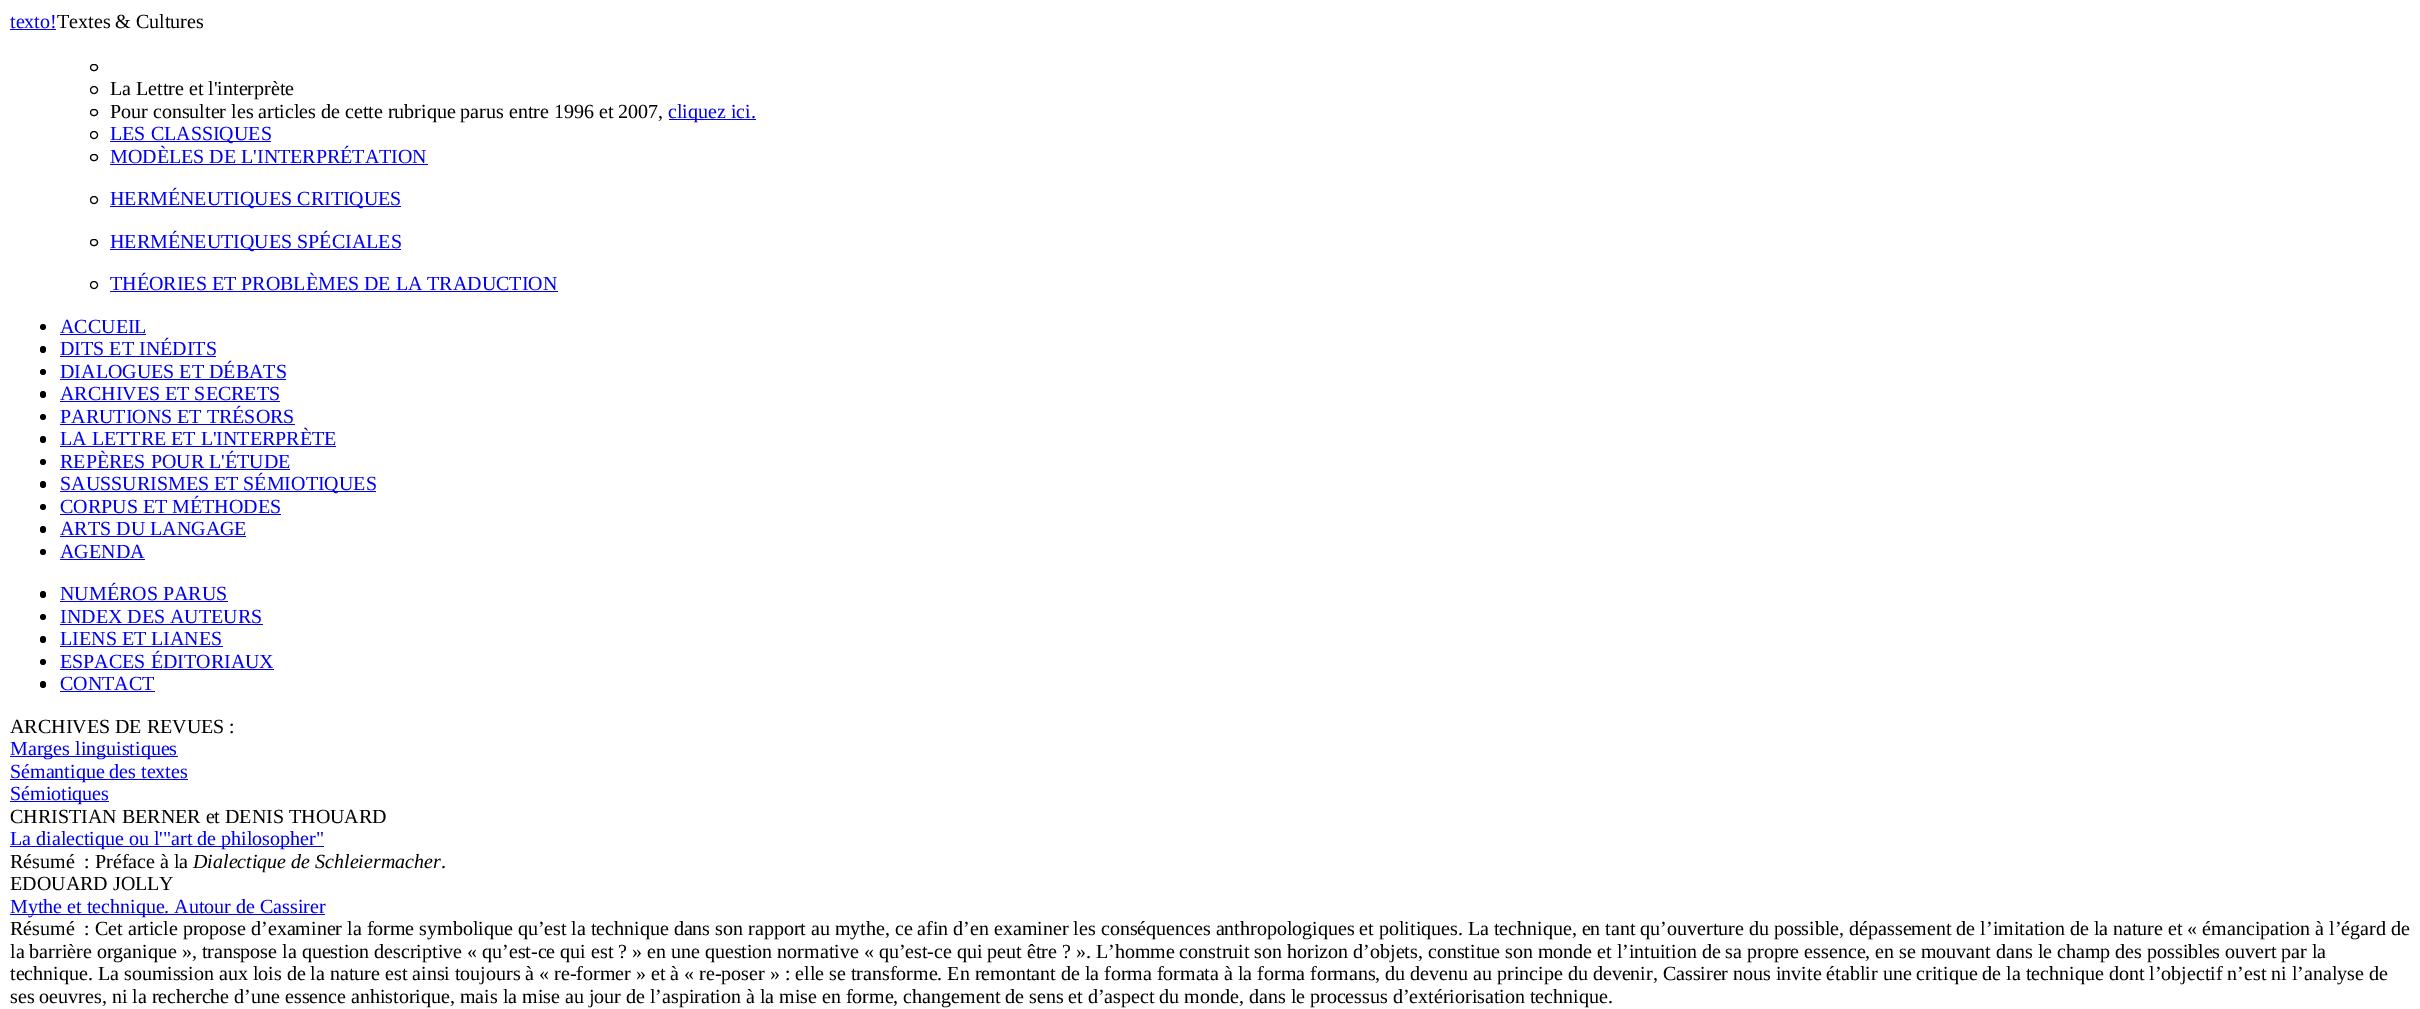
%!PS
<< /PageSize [2420 1009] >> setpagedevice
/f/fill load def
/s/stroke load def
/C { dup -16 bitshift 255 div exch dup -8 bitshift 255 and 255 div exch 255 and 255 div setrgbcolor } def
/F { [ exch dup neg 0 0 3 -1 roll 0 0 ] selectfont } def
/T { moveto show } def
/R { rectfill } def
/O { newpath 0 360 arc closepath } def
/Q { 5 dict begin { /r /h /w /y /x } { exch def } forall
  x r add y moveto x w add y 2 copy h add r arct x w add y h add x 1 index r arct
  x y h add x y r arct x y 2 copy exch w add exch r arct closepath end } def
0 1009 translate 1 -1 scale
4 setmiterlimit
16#FFFFFF C
0 0 2420 1009 R
/LiberationSerif-Regular 20 F
16#0000EE C
(texto!) 10 28 T
10 29 46 1 R
16#000000 C
(Textes & Cultures) 57 28 T
90.5 64.5 7 6 3 Q s
94 90 3.5 O s
(La Lettre et l'interprète) 110 95 T
90.5 109.5 7 6 3 Q s
(Pour consulter les articles de cette rubrique parus entre 1996 et 2007,) 110 118 T
16#0000EE C
669 119 87 1 R
(cliquez ici.) 668 118 T
16#000000 C
94 135 3.5 O s
16#0000EE C
110 141 161 1 R
(LES CLASSIQUES) 110 140 T
16#000000 C
90.5 154.5 7 6 3 Q s
16#0000EE C
(MODÈLES DE L'INTERPRÉTATION) 110 163 T
110 164 318 1 R
16#000000 C
94 200 3.5 O s
16#0000EE C
110 206 291 1 R
(HERMÉNEUTIQUES CRITIQUES) 110 205 T
16#000000 C
90.5 239.5 7 6 3 Q s
16#0000EE C
110 249 291 1 R
(HERMÉNEUTIQUES SPÉCIALES) 110 248 T
16#000000 C
94 285 3.5 O s
16#0000EE C
(THÉORIES ET PROBLÈMES DE LA TRADUCTION) 110 290 T
110 291 448 1 R
16#000000 C
43 327 3 O f
16#0000EE C
(ACCUEIL) 60 333 T
60 334 86 1 R
16#000000 C
40 346 6 7 3 Q f
16#0000EE C
(DITS ET INÉDITS) 60 355 T
60 356 156 1 R
16#000000 C
43 372 3 O f
16#0000EE C
(DIALOGUES ET DÉBATS) 60 378 T
60 379 226 1 R
16#000000 C
40 391 6 7 3 Q f
16#0000EE C
(ARCHIVES ET SECRETS) 60 400 T
60 401 220 1 R
16#000000 C
43 417 3 O f
16#0000EE C
(PARUTIONS ET TRÉSORS) 60 423 T
60 424 235 1 R
16#000000 C
40 436 6 7 3 Q f
16#0000EE C
(LA LETTRE ET L'INTERPRÈTE) 60 445 T
60 446 276 1 R
16#000000 C
43 462 3 O f
16#0000EE C
(REPÈRES POUR L'ÉTUDE) 60 468 T
60 469 230 1 R
16#000000 C
40 481 6 7 3 Q f
16#0000EE C
60 491 316 1 R
(SAUSSURISMES ET SÉMIOTIQUES) 60 490 T
16#000000 C
43 507 3 O f
16#0000EE C
(CORPUS ET MÉTHODES) 60 513 T
60 514 221 1 R
16#000000 C
40 526 6 7 3 Q f
16#0000EE C
(ARTS DU LANGAGE) 60 535 T
60 536 186 1 R
16#000000 C
43 552 3 O f
16#0000EE C
(AGENDA) 60 558 T
60 559 85 1 R
16#000000 C
40 591 6 7 3 Q f
16#0000EE C
(NUMÉROS PARUS) 60 600 T
60 601 168 1 R
16#000000 C
43 617 3 O f
16#0000EE C
(INDEX DES AUTEURS) 60 623 T
60 624 203 1 R
16#000000 C
40 636 6 7 3 Q f
16#0000EE C
(LIENS ET LIANES) 60 645 T
60 646 163 1 R
16#000000 C
43 662 3 O f
16#0000EE C
(ESPACES ÉDITORIAUX) 60 668 T
60 669 214 1 R
16#000000 C
40 681 6 7 3 Q f
16#0000EE C
(CONTACT) 60 690 T
60 691 95 1 R
16#000000 C
(ARCHIVES DE REVUES :) 10 733 T
16#0000EE C
10 756 168 1 R
(Marges linguistiques) 10 755 T
10 779 178 1 R
(Sémantique des textes) 10 778 T
10 801 99 1 R
(Sémiotiques) 10 800 T
16#000000 C
(CHRISTIAN BERNER et DENIS THOUARD) 10 823 T
16#0000EE C
10 846 314 1 R
(La dialectique ou l'"art de philosopher") 10 845 T
16#000000 C
(Résumé  : Préface à la) 10 868 T
/LiberationSerif-Italic 20 F
(Dialectique de Schleiermacher) 193 868 T
/LiberationSerif-Regular 20 F
(.) 441 868 T
(EDOUARD JOLLY) 10 890 T
16#0000EE C
10 914 315 1 R
(Mythe et technique. Autour de Cassirer) 10 913 T
16#000000 C
(Résumé  : Cet article propose d’examiner la forme symbolique qu’est la technique dans son rapport au mythe, ce afin d’en examiner les conséquences anthropologiques et politiques. La technique, en tant qu’ouverture du possible, dépassement de l’imitation de la nature et « émancipation à l’égard de) 10 935 T
(la barrière organique », transpose la question descriptive « qu’est-ce qui est ? » en une question normative « qu’est-ce qui peut être ? ». L’homme construit son horizon d’objets, constitue son monde et l’intuition de sa propre essence, en se mouvant dans le champ des possibles ouvert par la) 10 958 T
(technique. La soumission aux lois de la nature est ainsi toujours à « re-former » et à « re-poser » : elle se transforme. En remontant de la forma formata à la forma formans, du devenu au principe du devenir, Cassirer nous invite établir une critique de la technique dont l’objectif n’est ni l’analyse de) 10 980 T
(ses oeuvres, ni la recherche d’une essence anhistorique, mais la mise au jour de l’aspiration à la mise en forme, changement de sens et d’aspect du monde, dans le processus d’extériorisation technique.) 10 1003 T
showpage
